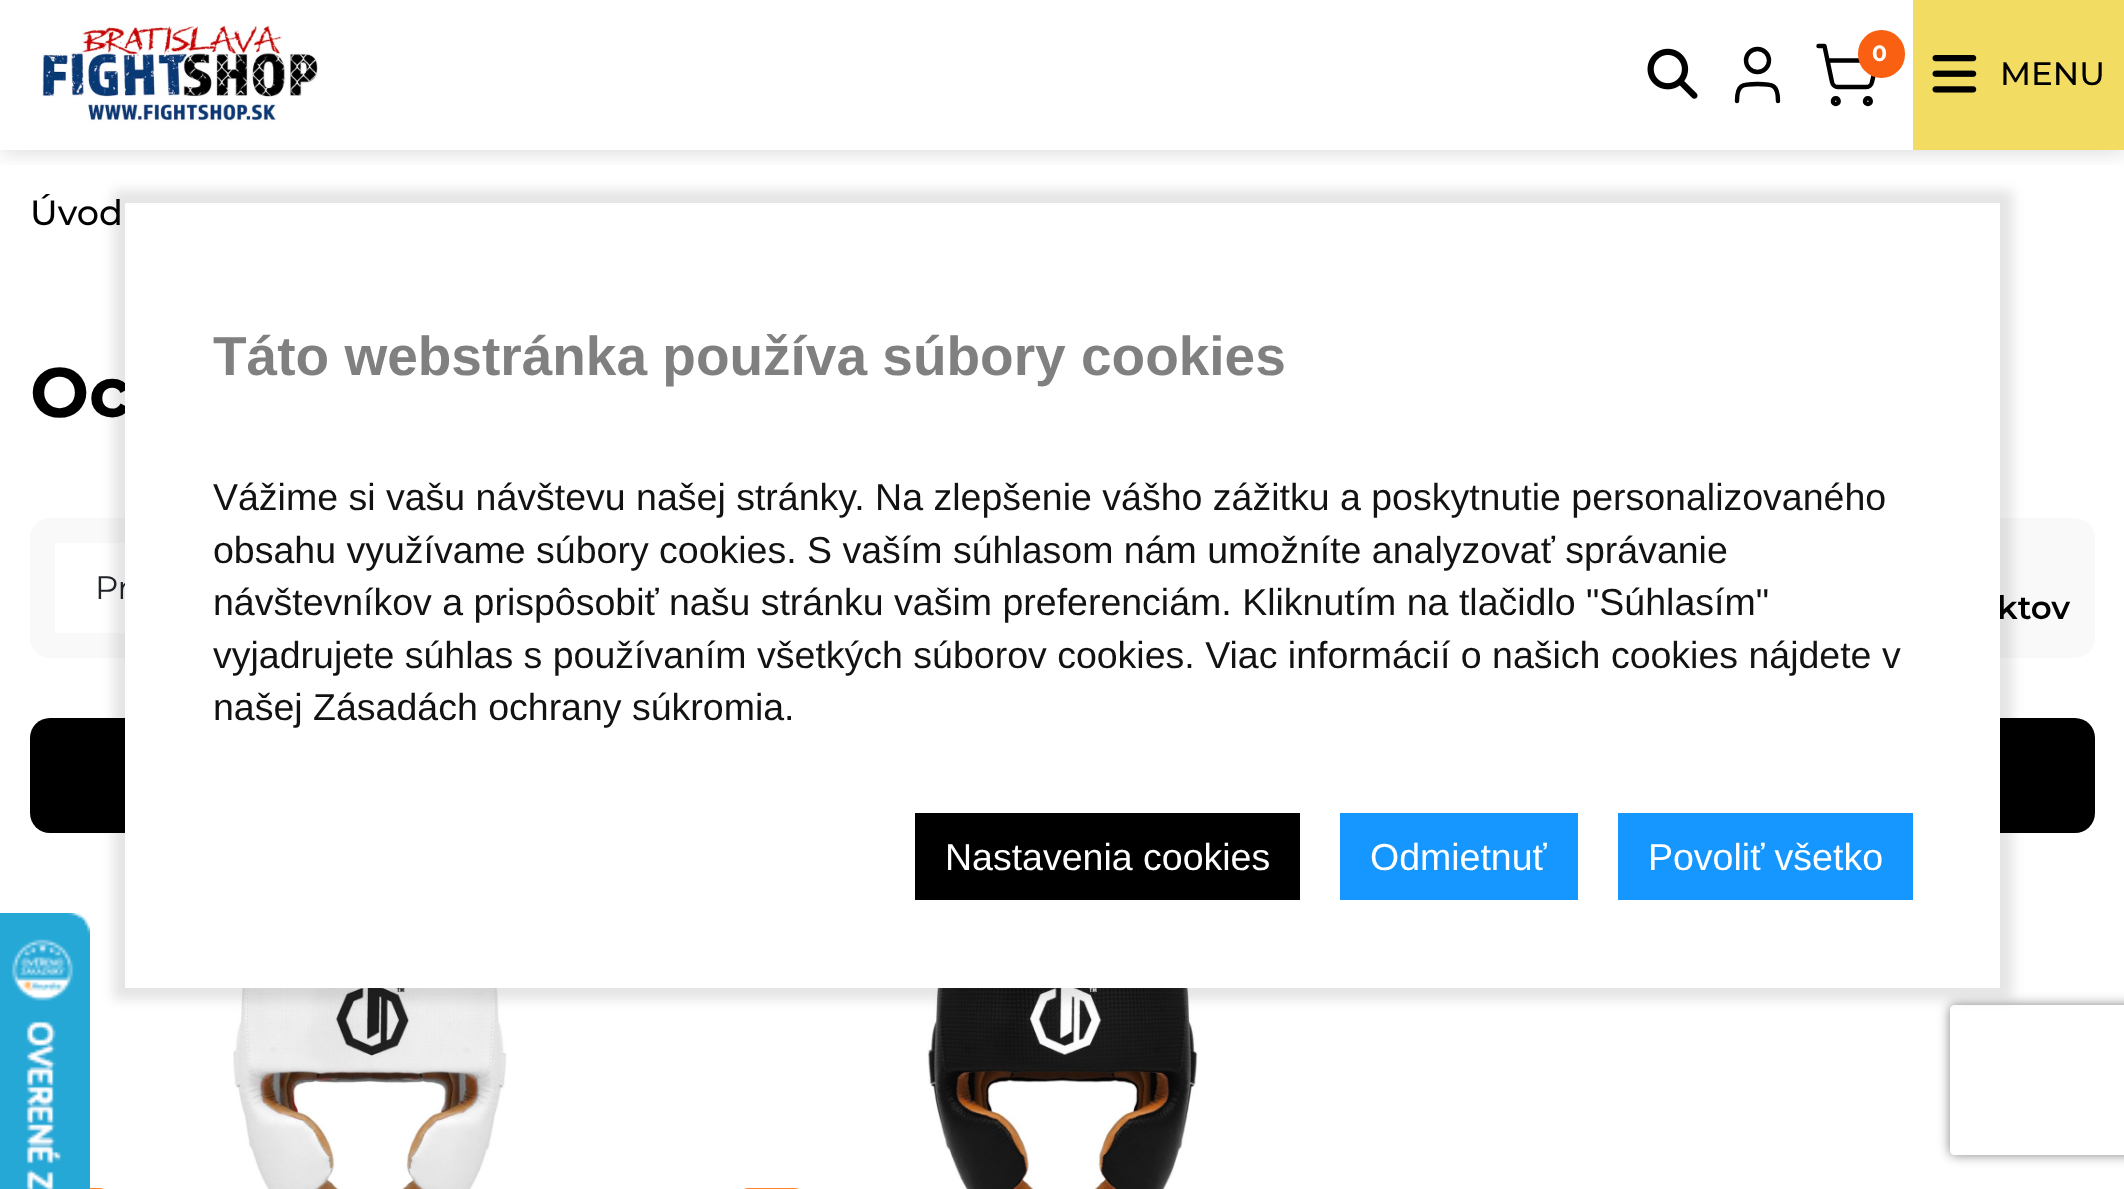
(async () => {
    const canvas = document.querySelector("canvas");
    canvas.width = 2124;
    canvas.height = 1189;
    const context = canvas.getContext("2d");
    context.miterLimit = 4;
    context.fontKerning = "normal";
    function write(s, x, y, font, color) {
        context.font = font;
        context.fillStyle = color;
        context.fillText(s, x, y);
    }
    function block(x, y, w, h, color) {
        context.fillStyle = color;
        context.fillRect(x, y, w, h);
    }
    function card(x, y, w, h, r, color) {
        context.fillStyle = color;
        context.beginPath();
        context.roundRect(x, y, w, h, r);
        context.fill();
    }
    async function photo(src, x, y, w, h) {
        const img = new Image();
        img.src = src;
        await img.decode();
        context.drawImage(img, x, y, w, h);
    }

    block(0, 0, 2124, 1189, "rgb(255, 255, 255)");
    context.save();
    context.beginPath();
    context.rect(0, 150, 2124, 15);
    context.clip();
    context.fillStyle = "rgba(0, 0, 0, 0.17)";
    context.filter = "blur(12.5px)";
    context.beginPath();
    context.rect(0, 0, 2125, 150);
    context.fill();
    context.filter = "none";
    context.restore();
    await photo("media/1.png", 42, 25, 276, 98);
    await photo("media/2.png", 1647, 48, 51, 51);
    context.beginPath();
    context.arc(1757.5, 60.5, 11.5, 0, Math.PI * 2);
    context.strokeStyle = "rgb(0, 0, 0)";
    context.lineWidth = 4.4;
    context.stroke();
    context.beginPath();
    context.moveTo(1778, 101);
    context.bezierCurveTo(1778, 84.5, 1773, 84, 1757.5, 84);
    context.bezierCurveTo(1742, 84, 1737, 84.5, 1737, 101);
    context.lineCap = "round";
    context.lineJoin = "round";
    context.stroke();
    context.beginPath();
    context.moveTo(1818.5, 46);
    context.lineTo(1824.5, 46);
    context.lineTo(1832, 82);
    context.bezierCurveTo(1832.5, 85, 1835, 87, 1838, 87);
    context.lineTo(1866.5, 87);
    context.bezierCurveTo(1869, 87, 1871.5, 85, 1872, 82);
    context.lineTo(1877, 60.5);
    context.lineTo(1827.5, 60.5);
    context.stroke();
    card(1858, 30, 47, 48, 23.5, "rgb(250, 96, 18)");
    write("0", 1872, 61, "bold 22px Montserrat", "rgb(255, 255, 255)");
    context.beginPath();
    context.arc(1835.8, 101.2, 2.9, 0, Math.PI * 2);
    context.stroke();
    context.beginPath();
    context.arc(1867.9, 101.2, 2.9, 0, Math.PI * 2);
    context.stroke();
    block(1913, 0, 211, 150, "rgb(242, 220, 97)");
    await photo("media/3.png", 1932, 55, 45, 38);
    write("MENU", 2000, 85, "500 32.5px Montserrat", "rgb(0, 0, 0)");
    write("Úvod", 30, 225, "500 35px Montserrat", "rgb(0, 0, 0)");
    write("Oc", 30, 417, "bold 70px Montserrat", "rgb(0, 0, 0)");
    card(30, 518, 2065, 140, 20, "rgb(249, 249, 249)");
    block(55, 543, 70, 90, "rgb(255, 255, 255)");
    write("Pr", 95, 599, "32.5px Montserrat", "rgb(33, 37, 41)");
    write("ktov", 1997, 619, "600 32.5px Montserrat", "rgb(0, 0, 0)");
    card(30, 718, 2065, 115, 20, "rgb(0, 0, 0)");
    await photo("media/4.png", 233, 988, 274, 201);
    card(43, 1188, 67, 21, 20, "rgb(255, 131, 41)");
    await photo("media/5.png", 927, 988, 271, 201);
    card(738, 1188, 67, 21, 20, "rgb(255, 131, 41)");
    context.fillStyle = "rgba(0, 0, 0, 0.1)";
    context.filter = "blur(6px)";
    context.beginPath();
    context.rect(113, 190, 1900, 810);
    context.fill();
    context.filter = "none";
    context.save();
    context.beginPath();
    context.moveTo(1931, 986);
    context.lineTo(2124, 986);
    context.lineTo(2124, 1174);
    context.lineTo(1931, 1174);
    context.closePath();
    context.moveTo(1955, 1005);
    context.lineTo(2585, 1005);
    context.bezierCurveTo(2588, 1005, 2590, 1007, 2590, 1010);
    context.lineTo(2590, 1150);
    context.bezierCurveTo(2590, 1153, 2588, 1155, 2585, 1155);
    context.lineTo(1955, 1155);
    context.bezierCurveTo(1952, 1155, 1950, 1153, 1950, 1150);
    context.lineTo(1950, 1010);
    context.bezierCurveTo(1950, 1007, 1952, 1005, 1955, 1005);
    context.closePath();
    context.clip("evenodd");
    context.fillStyle = "rgb(128, 128, 128)";
    context.filter = "blur(6px)";
    context.beginPath();
    context.roundRect(1950, 1005, 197, 150, 5);
    context.fill();
    context.filter = "none";
    context.restore();
    block(125, 203, 1875, 785, "rgb(255, 255, 255)");
    write("Táto webstránka používa súbory cookies", 213, 375, "bold 55px Liberation Sans", "rgb(128, 128, 128)");
    write("Vážime si vašu návštevu našej stránky. Na zlepšenie vášho zážitku a poskytnutie personalizovaného", 213, 510, "37.5px Liberation Sans", "rgb(18, 18, 18)");
    write("obsahu využívame súbory cookies. S vaším súhlasom nám umožníte analyzovať správanie", 213, 563, "37.5px Liberation Sans", "rgb(18, 18, 18)");
    write("návštevníkov a prispôsobiť našu stránku vašim preferenciám. Kliknutím na tlačidlo \"Súhlasím\"", 213, 615, "37.5px Liberation Sans", "rgb(18, 18, 18)");
    write("vyjadrujete súhlas s používaním všetkých súborov cookies. Viac informácií o našich cookies nájdete v", 213, 668, "37.5px Liberation Sans", "rgb(18, 18, 18)");
    write("našej Zásadách ochrany súkromia.", 213, 720, "37.5px Liberation Sans", "rgb(18, 18, 18)");
    block(915, 813, 385, 87, "rgb(0, 0, 0)");
    write("Nastavenia cookies", 945, 870, "37.5px Liberation Sans", "rgb(255, 255, 255)");
    block(1340, 813, 238, 87, "rgb(22, 150, 255)");
    write("Odmietnuť", 1370, 870, "37.5px Liberation Sans", "rgb(255, 255, 255)");
    block(1618, 813, 295, 87, "rgb(22, 150, 255)");
    write("Povoliť všetko", 1648, 870, "37.5px Liberation Sans", "rgb(255, 255, 255)");
    await photo("media/6.png", 0, 913, 90, 276);
})();
